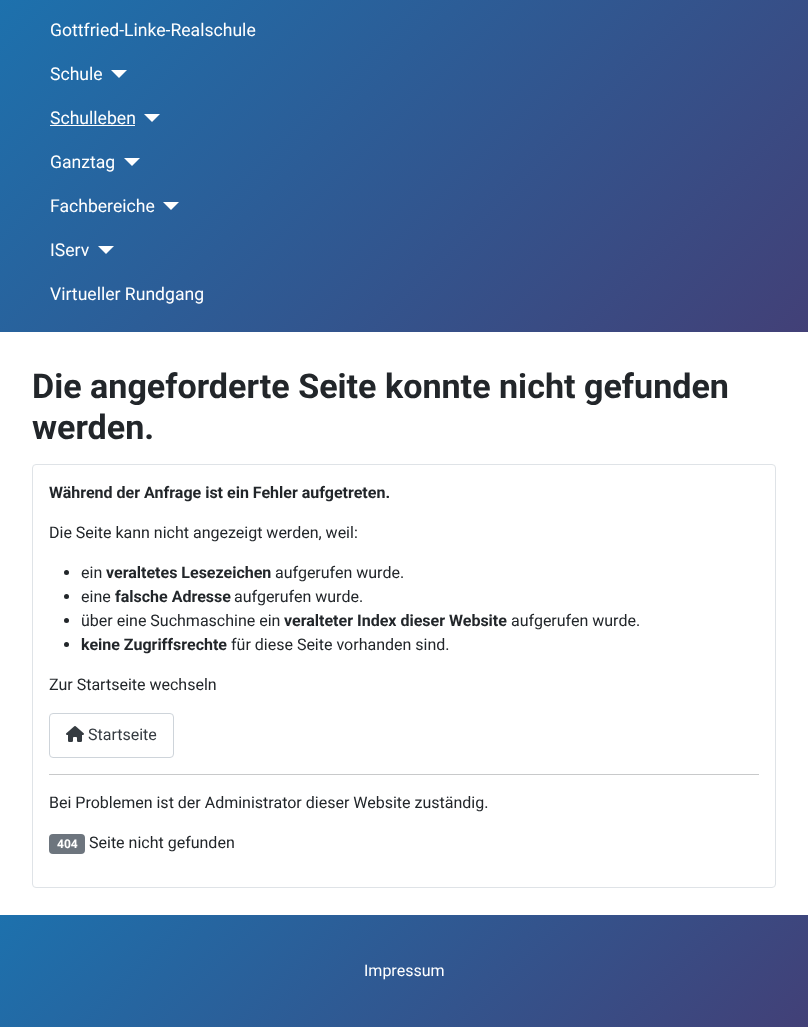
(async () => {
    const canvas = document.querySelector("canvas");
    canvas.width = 808;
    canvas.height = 1027;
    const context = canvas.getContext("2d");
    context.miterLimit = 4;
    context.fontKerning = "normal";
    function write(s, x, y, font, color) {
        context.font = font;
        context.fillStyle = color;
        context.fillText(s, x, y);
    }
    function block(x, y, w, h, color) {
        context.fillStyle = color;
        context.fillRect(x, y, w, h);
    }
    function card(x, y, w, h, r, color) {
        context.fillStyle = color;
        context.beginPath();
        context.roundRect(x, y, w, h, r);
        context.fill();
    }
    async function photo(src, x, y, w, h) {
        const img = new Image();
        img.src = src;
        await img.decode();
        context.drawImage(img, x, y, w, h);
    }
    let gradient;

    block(0, 0, 808, 1027, "rgb(255, 255, 255)");
    gradient = context.createLinearGradient(119, -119, 689, 451);
    gradient.addColorStop(0, "rgb(29, 113, 173)");
    gradient.addColorStop(1, "rgb(66, 64, 119)");
    context.fillStyle = gradient;
    context.fillRect(0, 0, 808, 332);
    write("Gottfried-Linke-Realschule", 50, 36, "17.6px Roboto", "rgb(255, 255, 255)");
    write("Schule", 50, 80, "17.6px Roboto", "rgb(255, 255, 255)");
    context.beginPath();
    context.moveTo(111, 70);
    context.lineTo(127, 70);
    context.lineTo(119, 78);
    context.closePath();
    context.fill();
    write("Schulleben", 50, 124, "17.6px Roboto", "rgb(255, 255, 255)");
    block(50, 125, 85, 1, "rgb(255, 255, 255)");
    context.beginPath();
    context.moveTo(144, 114);
    context.lineTo(160, 114);
    context.lineTo(152, 122);
    context.closePath();
    context.fill();
    write("Ganztag", 50, 168, "17.6px Roboto", "rgb(255, 255, 255)");
    context.beginPath();
    context.moveTo(124, 158);
    context.lineTo(140, 158);
    context.lineTo(132, 166);
    context.closePath();
    context.fill();
    write("Fachbereiche", 50, 212, "17.6px Roboto", "rgb(255, 255, 255)");
    context.beginPath();
    context.moveTo(163, 202);
    context.lineTo(179, 202);
    context.lineTo(171, 210);
    context.closePath();
    context.fill();
    write("IServ", 50, 256, "17.6px Roboto", "rgb(255, 255, 255)");
    context.beginPath();
    context.moveTo(98, 246);
    context.lineTo(114, 246);
    context.lineTo(106, 254);
    context.closePath();
    context.fill();
    write("Virtueller Rundgang", 50, 300, "17.6px Roboto", "rgb(255, 255, 255)");
    write("Die angeforderte Seite konnte nicht gefunden", 32, 398, "bold 34.1px Roboto", "rgb(34, 38, 42)");
    write("werden.", 32, 439, "bold 34.1px Roboto", "rgb(34, 38, 42)");
    context.beginPath();
    context.roundRect(32.5, 464.5, 743, 423, 3.5);
    context.strokeStyle = "rgb(223, 227, 231)";
    context.stroke();
    write("Während der Anfrage ist ein Fehler aufgetreten.", 49, 498, "bold 16px Roboto", "rgb(34, 38, 42)");
    write("Die Seite kann nicht angezeigt werden, weil:", 49, 538, "16px Roboto", "rgb(34, 38, 42)");
    context.beginPath();
    context.arc(66.5, 572.5, 2.5, 0, Math.PI * 2);
    context.fill();
    write("ein", 81, 578, "16px Roboto", "rgb(34, 38, 42)");
    write("veraltetes Lesezeichen", 106, 578, "bold 16px Roboto", "rgb(34, 38, 42)");
    write("aufgerufen wurde.", 275, 578, "16px Roboto", "rgb(34, 38, 42)");
    context.beginPath();
    context.arc(66.5, 596.5, 2.5, 0, Math.PI * 2);
    context.fill();
    write("eine", 81, 602, "16px Roboto", "rgb(34, 38, 42)");
    write("falsche Adresse", 115, 602, "bold 16px Roboto", "rgb(34, 38, 42)");
    write("aufgerufen wurde.", 234, 602, "16px Roboto", "rgb(34, 38, 42)");
    context.beginPath();
    context.arc(66.5, 620.5, 2.5, 0, Math.PI * 2);
    context.fill();
    write("über eine Suchmaschine ein", 81, 626, "16px Roboto", "rgb(34, 38, 42)");
    write("veralteter Index dieser Website", 284, 626, "bold 16px Roboto", "rgb(34, 38, 42)");
    write("aufgerufen wurde.", 511, 626, "16px Roboto", "rgb(34, 38, 42)");
    context.beginPath();
    context.arc(66.5, 644.5, 2.5, 0, Math.PI * 2);
    context.fill();
    write("keine Zugriffsrechte", 81, 650, "bold 16px Roboto", "rgb(34, 38, 42)");
    write("für diese Seite vorhanden sind.", 231, 650, "16px Roboto", "rgb(34, 38, 42)");
    write("Zur Startseite wechseln", 49, 690, "16px Roboto", "rgb(34, 38, 42)");
    context.beginPath();
    context.roundRect(49.5, 713.5, 124, 44, 3.5);
    context.strokeStyle = "rgb(206, 212, 218)";
    context.stroke();
    await photo("media/1.png", 66, 726, 18, 16);
    write("Startseite", 88, 740, "16px Roboto", "rgb(53, 59, 65)");
    block(49, 774, 710, 1, "rgb(200, 201, 202)");
    write("Bei Problemen ist der Administrator dieser Website zuständig.", 49, 808, "16px Roboto", "rgb(34, 38, 42)");
    card(49, 834, 36, 20, 4, "rgb(109, 117, 126)");
    write("404", 57, 848, "bold 12px Roboto", "rgb(255, 255, 255)");
    write("Seite nicht gefunden", 89, 848, "16px Roboto", "rgb(34, 38, 42)");
    gradient = context.createLinearGradient(174, 741, 634, 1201);
    gradient.addColorStop(0, "rgb(29, 113, 173)");
    gradient.addColorStop(1, "rgb(66, 64, 119)");
    context.fillStyle = gradient;
    context.fillRect(0, 915, 808, 112);
    write("Impressum", 364, 976, "16px Roboto", "rgb(255, 255, 255)");
})();
